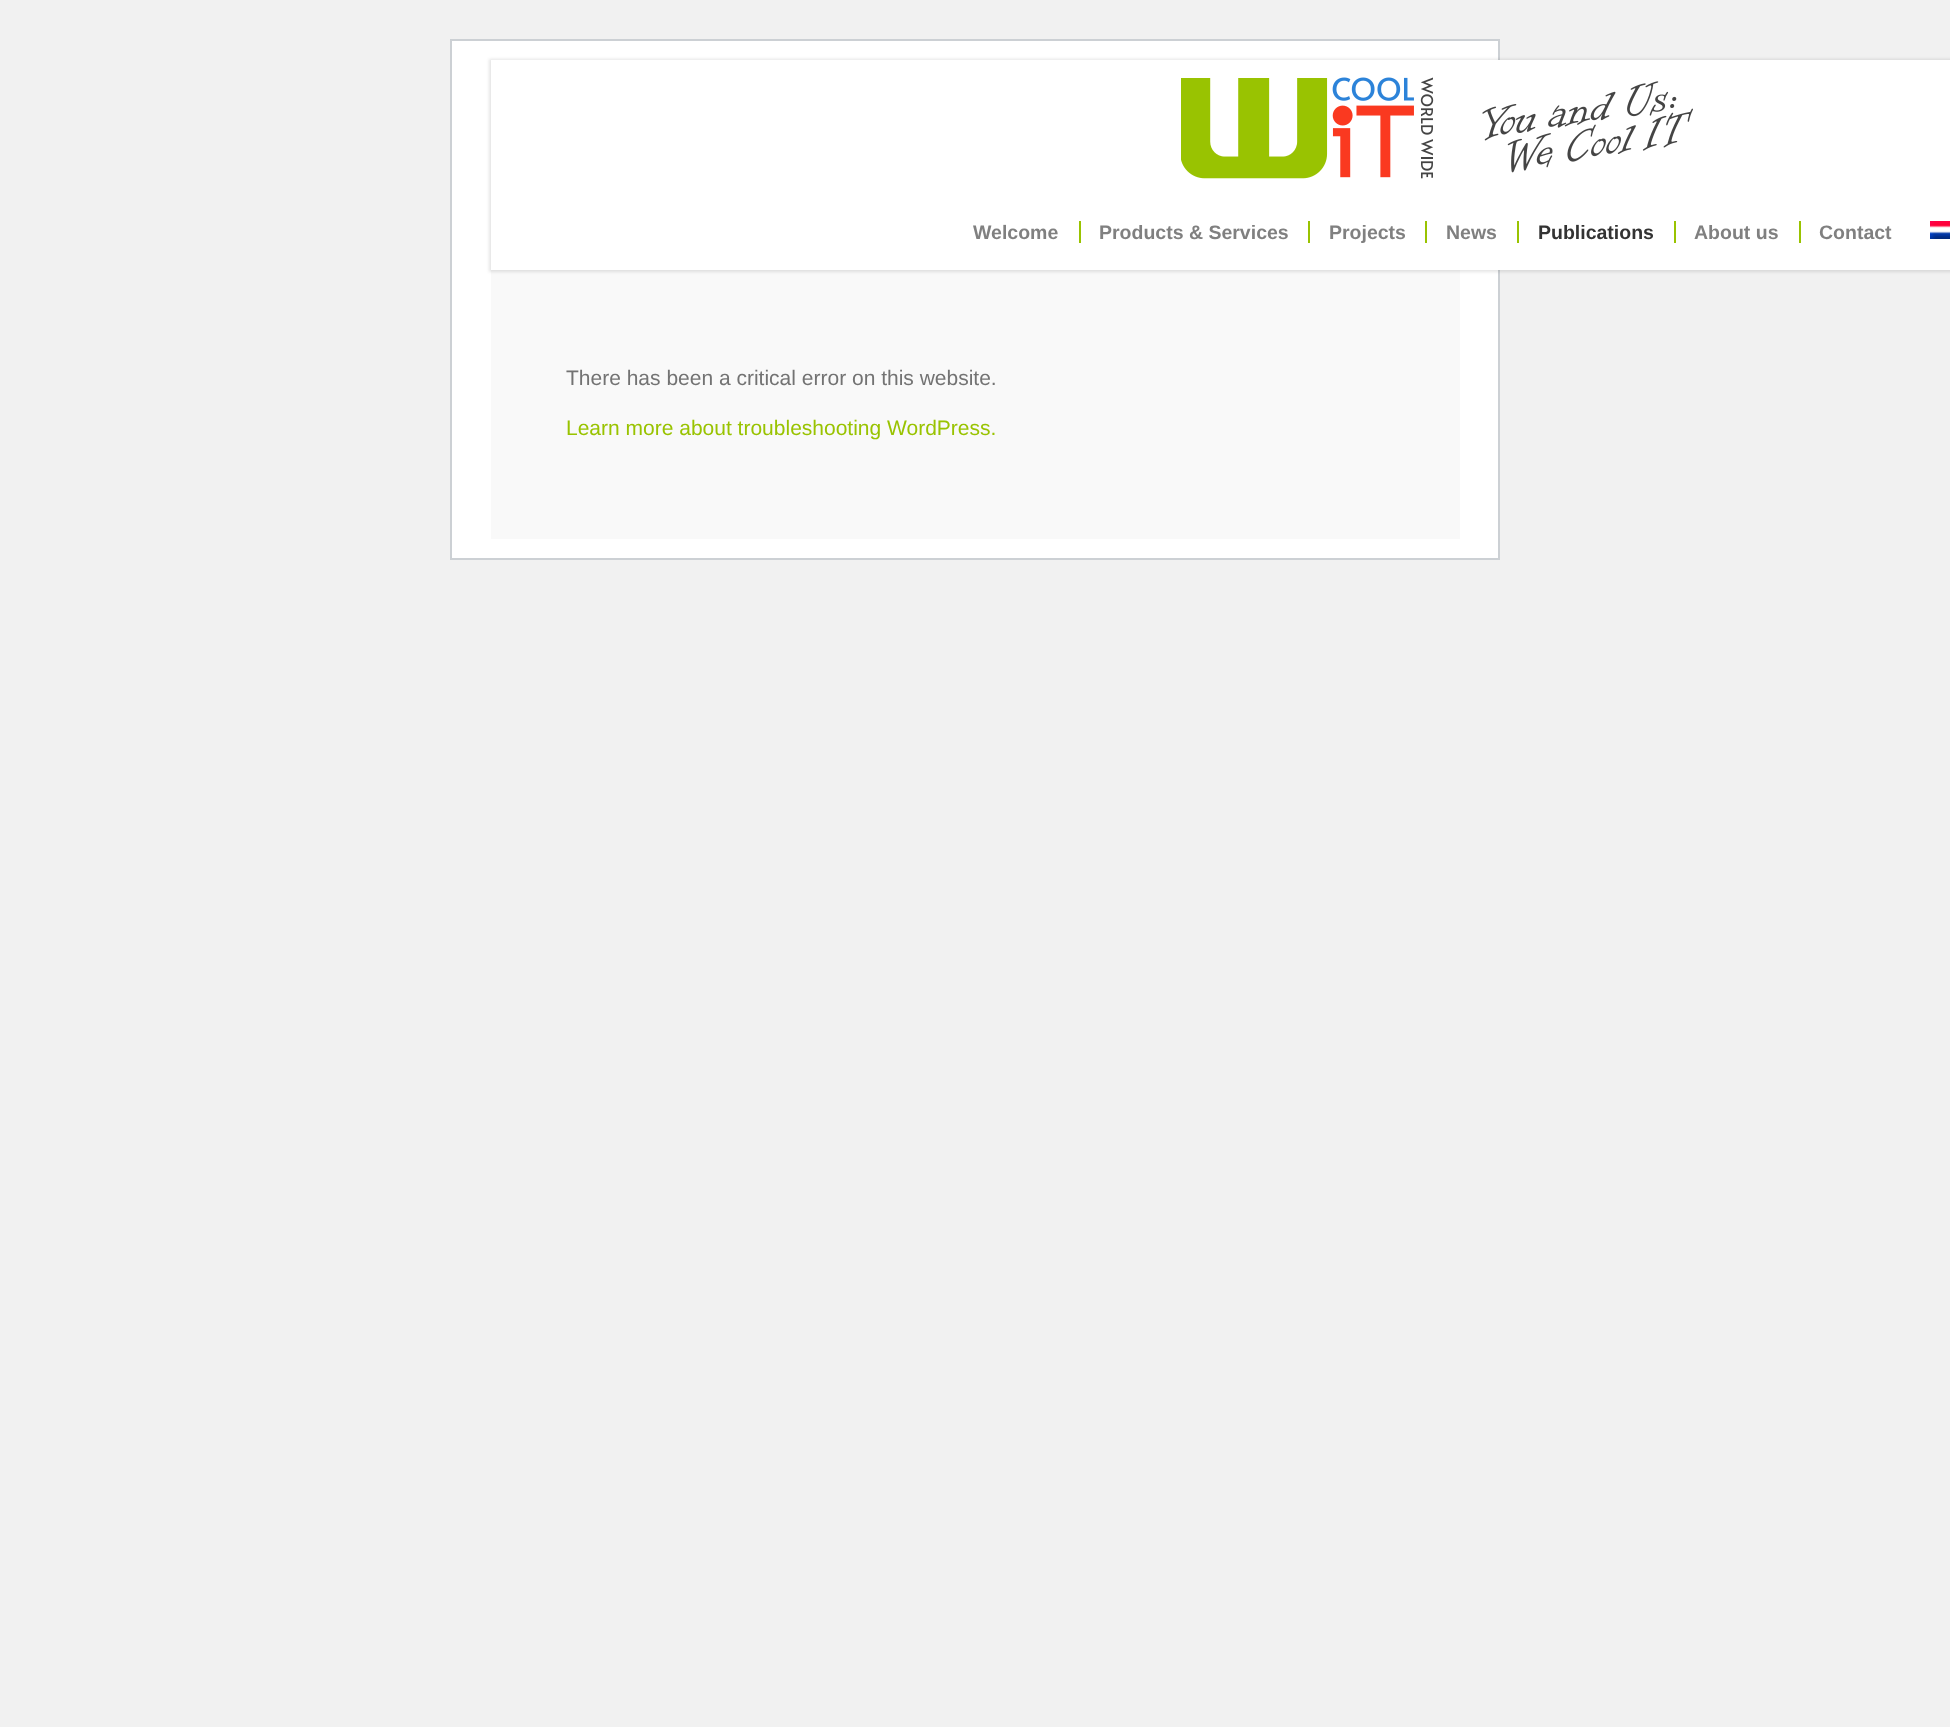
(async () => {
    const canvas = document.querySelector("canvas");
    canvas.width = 1950;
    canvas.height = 1727;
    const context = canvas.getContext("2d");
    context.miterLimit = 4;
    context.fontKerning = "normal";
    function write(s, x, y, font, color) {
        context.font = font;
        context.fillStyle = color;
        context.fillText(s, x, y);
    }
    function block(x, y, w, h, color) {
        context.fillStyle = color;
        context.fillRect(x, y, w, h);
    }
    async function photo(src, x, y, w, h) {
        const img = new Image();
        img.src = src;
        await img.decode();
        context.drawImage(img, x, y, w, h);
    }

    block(0, 0, 1950, 1727, "rgb(241, 241, 241)");
    context.fillStyle = "rgb(255, 255, 255)";
    context.beginPath();
    context.rect(451, 40, 1048, 519);
    context.fill();
    context.strokeStyle = "rgb(204, 208, 212)";
    context.lineWidth = 2;
    context.stroke();
    block(491, 270, 969, 269, "rgb(249, 249, 249)");
    context.fillStyle = "rgba(0, 0, 0, 0.1)";
    context.filter = "blur(1.5px)";
    context.beginPath();
    context.rect(489, 59, 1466, 213);
    context.fill();
    context.filter = "none";
    block(491, 60, 1459, 210, "rgb(255, 255, 255)");
    await photo("media/1.png", 1181, 77, 512, 102);
    write("Welcome", 973, 239, "bold 19.5px Liberation Sans", "rgb(128, 128, 128)");
    write("Products & Services", 1099, 239, "bold 19.5px Liberation Sans", "rgb(128, 128, 128)");
    block(1079, 221, 2, 22, "rgb(153, 195, 1)");
    write("Projects", 1329, 239, "bold 19.5px Liberation Sans", "rgb(128, 128, 128)");
    block(1308, 221, 2, 22, "rgb(153, 195, 1)");
    write("News", 1446, 239, "bold 19.5px Liberation Sans", "rgb(128, 128, 128)");
    block(1425, 221, 2, 22, "rgb(153, 195, 1)");
    write("Publications", 1538, 239, "bold 19.5px Liberation Sans", "rgb(51, 51, 51)");
    block(1517, 221, 2, 22, "rgb(153, 195, 1)");
    write("About us", 1694, 239, "bold 19.5px Liberation Sans", "rgb(128, 128, 128)");
    block(1674, 221, 2, 22, "rgb(153, 195, 1)");
    write("Contact", 1819, 239, "bold 19.5px Liberation Sans", "rgb(128, 128, 128)");
    block(1799, 221, 2, 22, "rgb(153, 195, 1)");
    await photo("media/2.png", 1930, 221, 20, 18);
    write("There has been a critical error on this website.", 566, 385, "21px Liberation Sans", "rgb(115, 115, 115)");
    write("Learn more about troubleshooting WordPress.", 566, 435, "21px Liberation Sans", "rgb(153, 195, 1)");
})();
